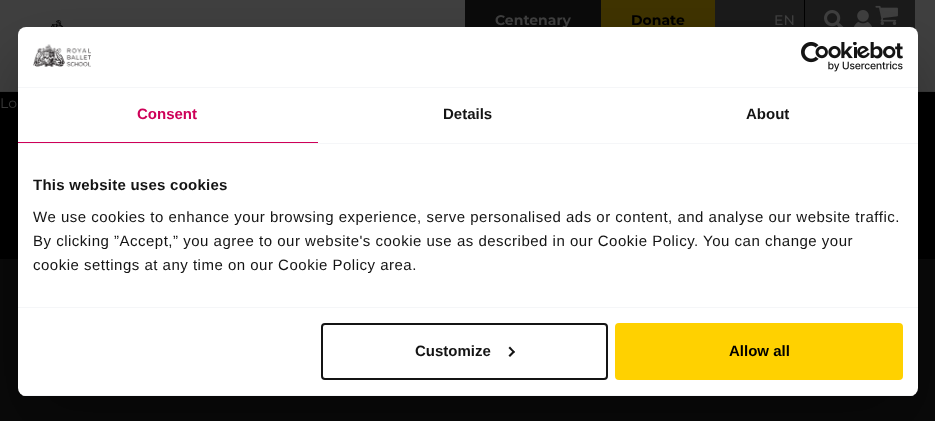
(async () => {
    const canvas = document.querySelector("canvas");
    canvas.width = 935;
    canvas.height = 421;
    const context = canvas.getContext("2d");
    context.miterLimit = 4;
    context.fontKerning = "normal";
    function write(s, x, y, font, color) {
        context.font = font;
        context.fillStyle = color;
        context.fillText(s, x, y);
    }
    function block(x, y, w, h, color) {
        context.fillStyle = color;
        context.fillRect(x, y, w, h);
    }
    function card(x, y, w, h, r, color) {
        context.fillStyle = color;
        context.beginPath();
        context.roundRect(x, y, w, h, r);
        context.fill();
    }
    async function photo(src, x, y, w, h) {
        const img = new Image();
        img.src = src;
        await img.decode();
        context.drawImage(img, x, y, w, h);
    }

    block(0, 0, 935, 421, "rgb(10, 10, 10)");
    block(0, 0, 935, 91, "rgb(64, 64, 64)");
    block(0, 91, 935, 1, "rgb(59, 59, 59)");
    await photo("media/1.png", 51, 20, 13, 7);
    block(715, 0, 200, 29, "rgb(27, 27, 27)");
    block(465, 0, 136, 27, "rgb(11, 11, 11)");
    write("Centenary", 495, 25, "bold 14px Montserrat", "rgb(64, 64, 64)");
    block(601, 0, 114, 27, "rgb(64, 52, 0)");
    write("Donate", 631, 25, "bold 14px Montserrat", "rgb(0, 0, 0)");
    write("EN", 774, 25, "500 14px Montserrat", "rgb(64, 64, 64)");
    block(804, 0, 1, 27, "rgb(0, 0, 0)");
    await photo("media/2.png", 824, 10, 20, 17);
    await photo("media/3.png", 854, 10, 18, 17);
    await photo("media/4.png", 875, 5, 23, 20);
    block(0, 92, 935, 167, "rgb(0, 0, 0)");
    write("Lo", 0, 108, "14px Montserrat", "rgb(64, 64, 64)");
    context.fillStyle = "rgba(0, 0, 0, 0.3)";
    context.filter = "blur(34px)";
    context.beginPath();
    context.roundRect(18, 59, 900, 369, 8);
    context.fill();
    context.filter = "none";
    card(18, 27, 900, 369, 8, "rgb(255, 255, 255)");
    block(18, 87, 900, 1, "rgb(245, 246, 248)");
    await photo("media/5.png", 33, 44, 58, 23);
    await photo("media/6.png", 801, 42, 102, 30);
    block(18, 143, 900, 1, "rgb(245, 246, 248)");
    block(18, 142, 300, 1, "rgb(206, 0, 88)");
    write("Consent", 137, 119, "bold 15px Liberation Sans", "rgb(206, 0, 88)");
    write("Details", 443, 119, "bold 15px Liberation Sans", "rgb(20, 20, 20)");
    write("About", 746, 119, "bold 15px Liberation Sans", "rgb(20, 20, 20)");
    block(18, 307, 900, 1, "rgb(245, 246, 248)");
    context.letterSpacing = "0.25px";
    write("This website uses cookies", 33, 190, "bold 15px Liberation Sans", "rgb(20, 20, 20)");
    context.letterSpacing = "0.5px";
    write("We use cookies to enhance your browsing experience, serve personalised ads or content, and analyse our website traffic.", 33, 222, "15px Liberation Sans", "rgb(20, 20, 20)");
    write("By clicking ”Accept,” you agree to our website's cookie use as described in our Cookie Policy. You can change your", 33, 246, "15px Liberation Sans", "rgb(20, 20, 20)");
    write("cookie settings at any time on our Cookie Policy area.", 33, 270, "15px Liberation Sans", "rgb(20, 20, 20)");
    context.save();
    context.beginPath();
    context.roundRect(18, 27, 900, 369, 8);
    context.clip();
    block(18, 395, 900, 1, "rgb(245, 246, 248)");
    context.restore();
    context.beginPath();
    context.roundRect(322, 324, 285, 55, 3);
    context.strokeStyle = "rgb(20, 20, 20)";
    context.lineWidth = 2;
    context.stroke();
    context.letterSpacing = "0px";
    write("Customize", 415, 356, "bold 15px Liberation Sans", "rgb(20, 20, 20)");
    context.beginPath();
    context.moveTo(510, 346.5);
    context.lineTo(515, 352);
    context.lineTo(513.5, 353);
    context.lineTo(508.5, 348);
    context.closePath();
    context.fill();
    context.beginPath();
    context.moveTo(513.5, 350.5);
    context.lineTo(515, 352);
    context.lineTo(510, 357);
    context.lineTo(508.5, 355.5);
    context.closePath();
    context.fill();
    context.fillStyle = "rgb(255, 209, 0)";
    context.beginPath();
    context.roundRect(616, 324, 286, 55, 3);
    context.fill();
    context.strokeStyle = "rgb(255, 209, 0)";
    context.stroke();
    write("Allow all", 729, 356, "bold 15px Liberation Sans", "rgb(0, 0, 0)");
})();
